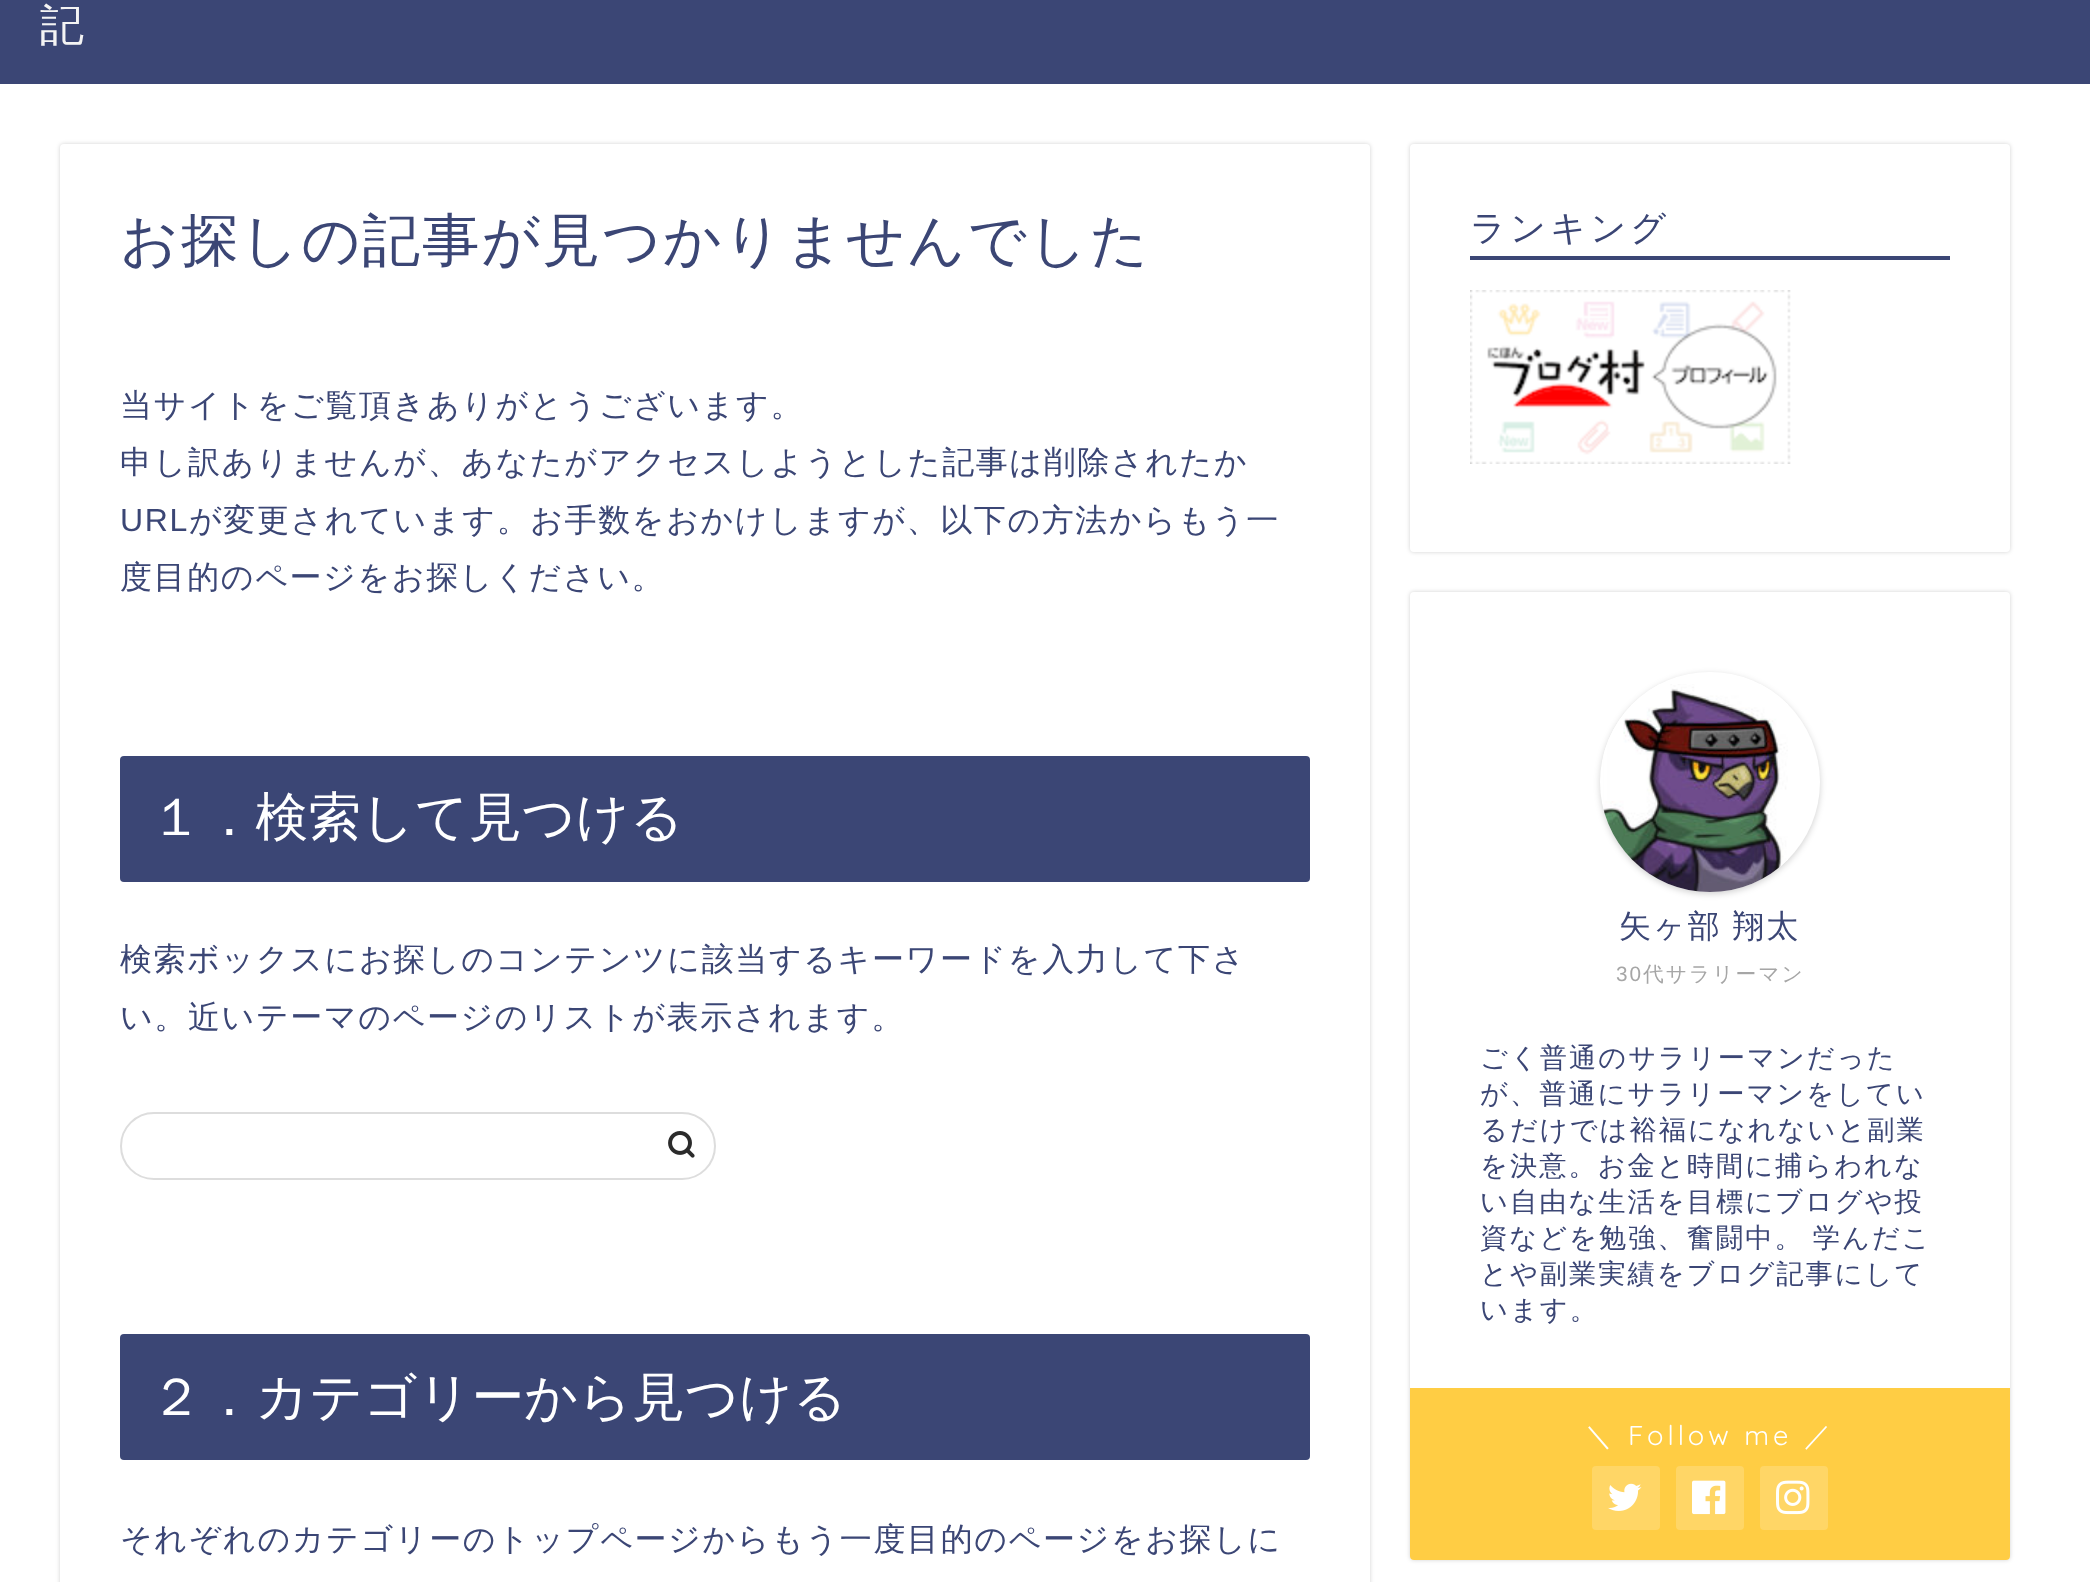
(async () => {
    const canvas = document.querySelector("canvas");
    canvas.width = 2090;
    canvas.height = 1582;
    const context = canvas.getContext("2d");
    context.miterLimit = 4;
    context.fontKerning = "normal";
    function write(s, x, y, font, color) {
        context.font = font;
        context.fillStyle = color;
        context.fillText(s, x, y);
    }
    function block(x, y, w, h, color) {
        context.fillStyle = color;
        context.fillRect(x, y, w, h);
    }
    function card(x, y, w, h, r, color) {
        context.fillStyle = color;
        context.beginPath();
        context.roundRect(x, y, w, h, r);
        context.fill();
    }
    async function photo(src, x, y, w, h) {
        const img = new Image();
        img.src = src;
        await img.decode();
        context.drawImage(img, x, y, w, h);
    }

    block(0, 0, 2090, 1582, "rgb(255, 255, 255)");
    block(0, 0, 2090, 84, "rgb(59, 70, 117)");
    context.letterSpacing = "6px";
    write("記", 40, 40, "500 44px WenQuanYi Zen Hei", "rgb(244, 244, 244)");
    context.fillStyle = "rgba(0, 0, 0, 0.18)";
    context.filter = "blur(2px)";
    context.beginPath();
    context.roundRect(60, 144, 1310, 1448, 4);
    context.fill();
    context.filter = "none";
    card(60, 144, 1310, 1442, 4, "rgb(255, 255, 255)");
    context.letterSpacing = "2px";
    write("お探しの記事が見つかりませんでした", 120, 260, "500 57.6px WenQuanYi Zen Hei", "rgb(59, 70, 117)");
    context.letterSpacing = "1.6px";
    write("当サイトをご覧頂きありがとうございます。", 120, 416, "500 32px WenQuanYi Zen Hei", "rgb(59, 70, 117)");
    write("申し訳ありませんが、あなたがアクセスしようとした記事は削除されたか", 120, 473, "500 32px WenQuanYi Zen Hei", "rgb(59, 70, 117)");
    write("URL", 120, 531, "32px Liberation Sans", "rgb(59, 70, 117)");
    write("が変更されています。お手数をおかけしますが、以下の方法からもう一", 189, 531, "500 32px WenQuanYi Zen Hei", "rgb(59, 70, 117)");
    write("度目的のページをお探しください。", 120, 588, "500 32px WenQuanYi Zen Hei", "rgb(59, 70, 117)");
    card(120, 756, 1190, 126, 4, "rgb(59, 70, 117)");
    context.letterSpacing = "0px";
    write("１．検索して見つける", 150, 835, "500 52.75px WenQuanYi Zen Hei", "rgb(255, 255, 255)");
    context.letterSpacing = "1.6px";
    write("検索ボックスにお探しのコンテンツに該当するキーワードを入力して下さ", 120, 970, "500 32px WenQuanYi Zen Hei", "rgb(59, 70, 117)");
    write("い。近いテーマのページのリストが表示されます。", 120, 1028, "500 32px WenQuanYi Zen Hei", "rgb(59, 70, 117)");
    context.beginPath();
    context.roundRect(121, 1113, 594, 66, 33);
    context.strokeStyle = "rgb(221, 221, 221)";
    context.lineWidth = 2;
    context.stroke();
    await photo("media/1.png", 668, 1131, 27, 27);
    card(120, 1334, 1190, 126, 4, "rgb(59, 70, 117)");
    context.letterSpacing = "0px";
    write("２．カテゴリーから見つける", 150, 1415, "500 52.75px WenQuanYi Zen Hei", "rgb(255, 255, 255)");
    context.letterSpacing = "1.6px";
    write("それぞれのカテゴリーのトップページからもう一度目的のページをお探しに", 120, 1550, "500 32px WenQuanYi Zen Hei", "rgb(59, 70, 117)");
    context.fillStyle = "rgba(0, 0, 0, 0.18)";
    context.filter = "blur(2px)";
    context.beginPath();
    context.roundRect(1410, 144, 600, 408, 4);
    context.fill();
    context.filter = "none";
    card(1410, 144, 600, 408, 4, "rgb(255, 255, 255)");
    block(1470, 256, 480, 4, "rgb(59, 70, 117)");
    context.letterSpacing = "4px";
    write("ランキング", 1470, 240, "500 35.25px WenQuanYi Zen Hei", "rgb(59, 70, 117)");
    await photo("media/2.png", 1470, 290, 321, 174);
    context.fillStyle = "rgba(0, 0, 0, 0.18)";
    context.filter = "blur(2px)";
    context.beginPath();
    context.roundRect(1410, 592, 600, 968, 4);
    context.fill();
    context.filter = "none";
    card(1410, 592, 600, 968, 4, "rgb(255, 255, 255)");
    context.fillStyle = "rgba(0, 0, 0, 0.18)";
    context.filter = "blur(3px)";
    context.beginPath();
    context.roundRect(1600, 674, 220, 220, 110);
    context.fill();
    context.filter = "none";
    context.fillStyle = "rgb(255, 255, 255)";
    context.beginPath();
    context.arc(1710, 782, 110, 0, Math.PI * 2);
    context.fill();
    await photo("media/3.png", 1603, 684, 185, 208);
    context.letterSpacing = "2px";
    context.wordSpacing = "-1px";
    write("矢ヶ部 翔太", 1619, 937, "500 32px WenQuanYi Zen Hei", "rgb(59, 70, 117)");
    context.wordSpacing = "0px";
    write("30", 1616, 981, "20.75px Liberation Sans", "rgb(166, 166, 166)");
    write("代サラリーマン", 1643, 981, "500 20.75px WenQuanYi Zen Hei", "rgb(166, 166, 166)");
    write("ごく普通のサラリーマンだった", 1480, 1067, "500 27.25px WenQuanYi Zen Hei", "rgb(59, 70, 117)");
    write("が、普通にサラリーマンをしてい", 1480, 1103, "500 27.25px WenQuanYi Zen Hei", "rgb(59, 70, 117)");
    write("るだけでは裕福になれないと副業", 1480, 1139, "500 27.25px WenQuanYi Zen Hei", "rgb(59, 70, 117)");
    write("を決意。お金と時間に捕らわれな", 1480, 1175, "500 27.25px WenQuanYi Zen Hei", "rgb(59, 70, 117)");
    write("い自由な生活を目標にブログや投", 1480, 1211, "500 27.25px WenQuanYi Zen Hei", "rgb(59, 70, 117)");
    context.wordSpacing = "-1px";
    write("資などを勉強、奮闘中。 学んだこ", 1480, 1247, "500 27.25px WenQuanYi Zen Hei", "rgb(59, 70, 117)");
    context.wordSpacing = "0px";
    write("とや副業実績をブログ記事にして", 1480, 1283, "500 27.25px WenQuanYi Zen Hei", "rgb(59, 70, 117)");
    write("います。", 1480, 1319, "500 27.25px WenQuanYi Zen Hei", "rgb(59, 70, 117)");
    context.fillStyle = "rgb(255, 205, 68)";
    context.beginPath();
    context.roundRect(1410, 1388, 600, 172, [0, 0, 4, 4]);
    context.fill();
    context.letterSpacing = "4px";
    write("＼", 1585, 1445, "500 27.25px WenQuanYi Zen Hei", "rgb(255, 255, 255)");
    write("Follow me", 1628, 1445, "300 27.25px Quicksand", "rgb(255, 255, 255)");
    write("／", 1804, 1445, "500 27.25px WenQuanYi Zen Hei", "rgb(255, 255, 255)");
    card(1592, 1466, 68, 64, 4, "rgb(255, 214, 102)");
    await photo("media/4.png", 1608, 1483, 34, 28);
    card(1676, 1466, 68, 64, 4, "rgb(255, 214, 102)");
    await photo("media/5.png", 1692, 1480, 34, 35);
    card(1760, 1466, 68, 64, 4, "rgb(255, 214, 102)");
    await photo("media/6.png", 1776, 1480, 34, 35);
})();
